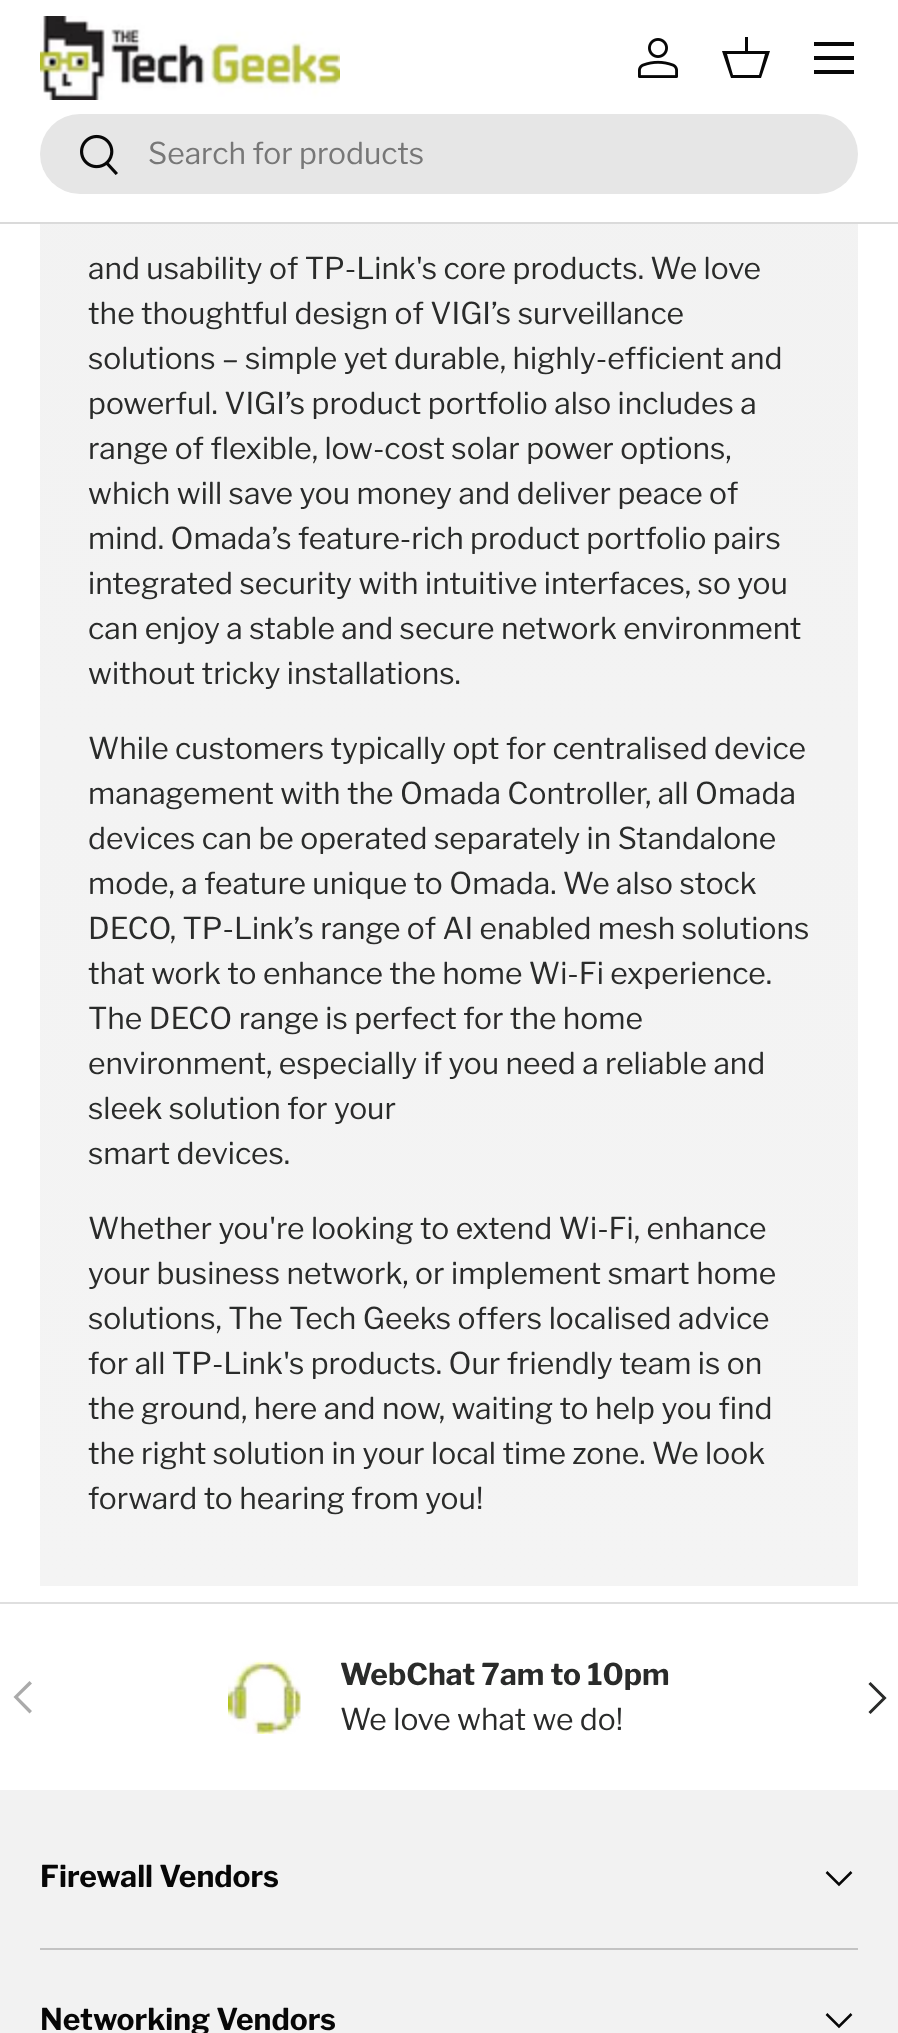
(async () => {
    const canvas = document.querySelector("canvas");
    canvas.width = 898;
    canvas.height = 2033;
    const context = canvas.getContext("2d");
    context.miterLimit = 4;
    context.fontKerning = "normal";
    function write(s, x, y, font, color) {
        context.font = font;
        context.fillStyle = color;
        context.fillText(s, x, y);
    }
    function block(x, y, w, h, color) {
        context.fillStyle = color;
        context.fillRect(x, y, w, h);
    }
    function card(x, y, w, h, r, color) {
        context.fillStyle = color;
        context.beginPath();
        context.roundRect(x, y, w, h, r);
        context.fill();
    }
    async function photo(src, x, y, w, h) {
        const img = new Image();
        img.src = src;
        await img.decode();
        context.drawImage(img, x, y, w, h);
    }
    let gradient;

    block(0, 0, 898, 2033, "rgb(255, 255, 255)");
    block(0, 222, 898, 2, "rgb(218, 218, 218)");
    await photo("media/1.png", 40, 16, 300, 84);
    await photo("media/2.png", 638, 38, 40, 40);
    context.fillStyle = "rgb(7, 7, 7)";
    context.beginPath();
    context.moveTo(745, 51);
    context.lineTo(745, 37);
    context.lineTo(748, 37);
    context.lineTo(748, 51);
    context.lineTo(770, 51);
    context.lineTo(761, 78);
    context.lineTo(731, 78);
    context.lineTo(722, 51);
    context.closePath();
    context.moveTo(727, 54);
    context.lineTo(733, 75);
    context.lineTo(759, 75);
    context.lineTo(765, 54);
    context.closePath();
    context.fill();
    block(814, 42, 40, 4, "rgb(7, 7, 7)");
    block(814, 70, 40, 4, "rgb(7, 7, 7)");
    block(814, 56, 40, 4, "rgb(7, 7, 7)");
    card(40, 114, 818, 80, 40, "rgb(230, 230, 230)");
    await photo("media/3.png", 80, 134, 38, 41);
    write("Search for products", 148, 164, "100 30px Libre Franklin", "rgb(119, 119, 119)");
    gradient = context.createLinearGradient(449, -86, 449, 1586);
    gradient.addColorStop(0, "rgb(242, 242, 242)");
    gradient.addColorStop(1, "rgb(244, 244, 244)");
    context.fillStyle = gradient;
    context.fillRect(40, 224, 818, 1362);
    write("and usability of TP-Link's core products. We love", 88, 279, "100 30px Libre Franklin", "rgb(42, 43, 42)");
    write("the thoughtful design of VIGI’s surveillance", 88, 324, "100 30px Libre Franklin", "rgb(42, 43, 42)");
    write("solutions – simple yet durable, highly-efficient and", 88, 369, "100 30px Libre Franklin", "rgb(42, 43, 42)");
    write("powerful. VIGI’s product portfolio also includes a", 88, 414, "100 30px Libre Franklin", "rgb(42, 43, 42)");
    write("range of flexible, low-cost solar power options,", 88, 459, "100 30px Libre Franklin", "rgb(42, 43, 42)");
    write("which will save you money and deliver peace of", 88, 504, "100 30px Libre Franklin", "rgb(42, 43, 42)");
    write("mind. Omada’s feature-rich product portfolio pairs", 88, 549, "100 30px Libre Franklin", "rgb(42, 43, 42)");
    write("integrated security with intuitive interfaces, so you", 88, 594, "100 30px Libre Franklin", "rgb(42, 43, 42)");
    write("can enjoy a stable and secure network environment", 88, 639, "100 30px Libre Franklin", "rgb(42, 43, 42)");
    write("without tricky installations.", 88, 684, "100 30px Libre Franklin", "rgb(42, 43, 42)");
    write("While customers typically opt for centralised device", 88, 759, "100 30px Libre Franklin", "rgb(42, 43, 42)");
    write("management with the Omada Controller, all Omada", 88, 804, "100 30px Libre Franklin", "rgb(42, 43, 42)");
    write("devices can be operated separately in Standalone", 88, 849, "100 30px Libre Franklin", "rgb(42, 43, 42)");
    write("mode, a feature unique to Omada. We also stock", 88, 894, "100 30px Libre Franklin", "rgb(42, 43, 42)");
    write("DECO, TP-Link’s range of AI enabled mesh solutions", 88, 939, "100 30px Libre Franklin", "rgb(42, 43, 42)");
    write("that work to enhance the home Wi-Fi experience.", 88, 984, "100 30px Libre Franklin", "rgb(42, 43, 42)");
    write("The DECO range is perfect for the home", 88, 1029, "100 30px Libre Franklin", "rgb(42, 43, 42)");
    write("environment, especially if you need a reliable and", 88, 1074, "100 30px Libre Franklin", "rgb(42, 43, 42)");
    write("sleek solution for your", 88, 1119, "100 30px Libre Franklin", "rgb(42, 43, 42)");
    write("smart devices.", 88, 1164, "100 30px Libre Franklin", "rgb(42, 43, 42)");
    write("Whether you're looking to extend Wi-Fi, enhance", 88, 1239, "100 30px Libre Franklin", "rgb(42, 43, 42)");
    write("your business network, or implement smart home", 88, 1284, "100 30px Libre Franklin", "rgb(42, 43, 42)");
    write("solutions, The Tech Geeks offers localised advice", 88, 1329, "100 30px Libre Franklin", "rgb(42, 43, 42)");
    write("for all TP-Link's products. Our friendly team is on", 88, 1374, "100 30px Libre Franklin", "rgb(42, 43, 42)");
    write("the ground, here and now, waiting to help you find", 88, 1419, "100 30px Libre Franklin", "rgb(42, 43, 42)");
    write("the right solution in your local time zone. We look", 88, 1464, "100 30px Libre Franklin", "rgb(42, 43, 42)");
    write("forward to hearing from you!", 88, 1509, "100 30px Libre Franklin", "rgb(42, 43, 42)");
    block(0, 1602, 898, 2, "rgb(223, 223, 223)");
    await photo("media/4.png", 228, 1660, 73, 74);
    write("WebChat 7am to 10pm", 340, 1685, "bold 30px Libre Franklin", "rgb(42, 43, 42)");
    write("We love what we do!", 340, 1730, "100 30px Libre Franklin", "rgb(42, 43, 42)");
    context.fillStyle = "rgb(170, 170, 170)";
    context.beginPath();
    context.moveTo(13.5, 1697);
    context.lineTo(29.5, 1681);
    context.lineTo(32, 1683.5);
    context.lineTo(18, 1697);
    context.lineTo(32, 1711);
    context.lineTo(29.5, 1713.5);
    context.closePath();
    context.fill();
    context.beginPath();
    context.moveTo(869.5, 1683);
    context.lineTo(884.5, 1698);
    context.lineTo(869.5, 1713);
    context.strokeStyle = "rgb(42, 43, 42)";
    context.lineWidth = 3;
    context.stroke();
    block(0, 1790, 898, 243, "rgb(242, 242, 242)");
    block(40, 1948, 818, 2, "rgb(195, 195, 195)");
    write("Firewall Vendors", 40, 1887, "bold 30px Libre Franklin", "rgb(7, 7, 7)");
    context.beginPath();
    context.moveTo(851.5, 1872);
    context.lineTo(839, 1884.5);
    context.lineTo(826.5, 1872);
    context.strokeStyle = "rgb(7, 7, 7)";
    context.lineWidth = 2.5;
    context.stroke();
    write("Networking Vendors", 40, 2030, "bold 30px Libre Franklin", "rgb(7, 7, 7)");
    context.beginPath();
    context.moveTo(851.5, 2014);
    context.lineTo(839, 2026.5);
    context.lineTo(826.5, 2014);
    context.stroke();
})();
